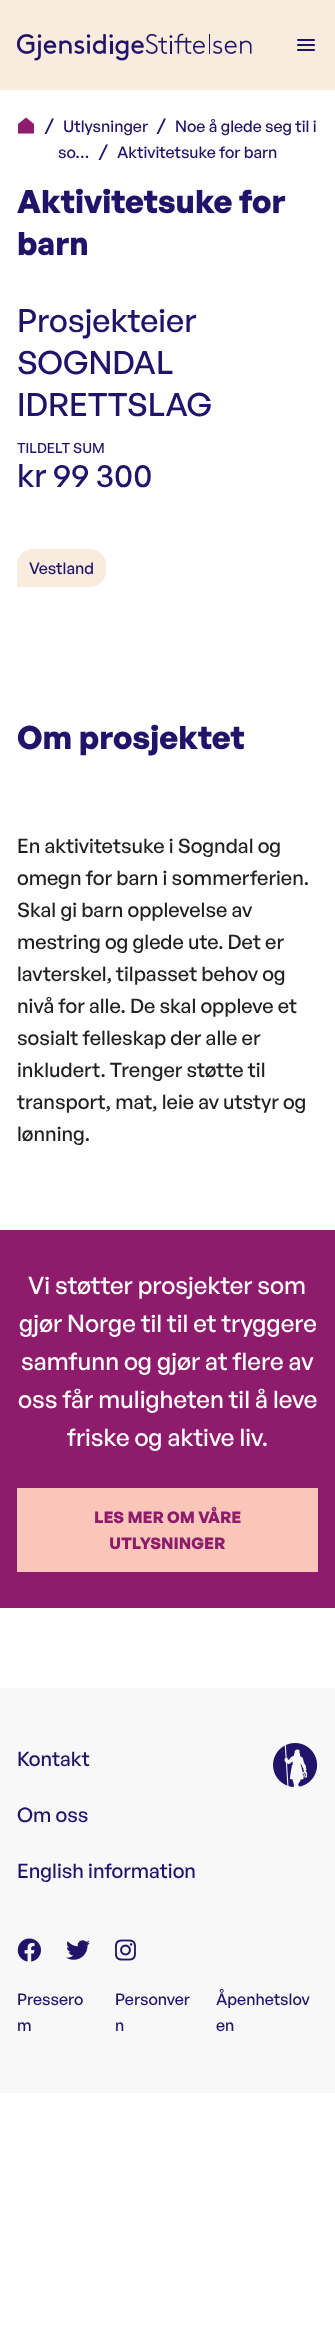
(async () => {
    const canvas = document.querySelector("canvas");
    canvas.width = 335;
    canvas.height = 2328;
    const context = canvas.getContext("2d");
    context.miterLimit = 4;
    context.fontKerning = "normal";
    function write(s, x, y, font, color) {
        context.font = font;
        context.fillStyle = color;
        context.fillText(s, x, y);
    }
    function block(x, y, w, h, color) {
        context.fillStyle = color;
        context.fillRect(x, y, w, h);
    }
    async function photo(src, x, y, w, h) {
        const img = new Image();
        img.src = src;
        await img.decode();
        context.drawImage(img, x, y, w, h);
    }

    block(0, 0, 335, 2328, "rgb(255, 255, 255)");
    block(0, 0, 335, 90, "rgb(250, 235, 223)");
    await photo("media/1.png", 17, 33, 235, 28);
    await photo("media/2.png", 297, 39, 18, 12);
    context.fillStyle = "rgb(143, 27, 108)";
    context.beginPath();
    context.moveTo(18, 124);
    context.lineTo(26, 117.5);
    context.lineTo(34, 124);
    context.lineTo(34, 133.5);
    context.lineTo(18, 133.5);
    context.closePath();
    context.fill();
    context.fillStyle = "rgb(32, 19, 105)";
    context.beginPath();
    context.moveTo(46.5, 134);
    context.lineTo(54, 118.5);
    context.lineTo(52, 118.5);
    context.lineTo(44.5, 134);
    context.closePath();
    context.fill();
    write("Utlysninger", 63, 132, "500 16px General Sans", "rgb(32, 19, 105)");
    context.beginPath();
    context.moveTo(158.5, 134);
    context.lineTo(166, 118.5);
    context.lineTo(164, 118.5);
    context.lineTo(156.5, 134);
    context.closePath();
    context.fill();
    write("Noe å glede seg til i", 175, 132, "500 16px General Sans", "rgb(32, 19, 105)");
    write("so…", 58, 158, "500 16px General Sans", "rgb(32, 19, 105)");
    context.beginPath();
    context.moveTo(100.5, 160);
    context.lineTo(108, 144.5);
    context.lineTo(106, 144.5);
    context.lineTo(98.5, 160);
    context.closePath();
    context.fill();
    write("Aktivitetsuke for barn", 117, 158, "500 16px General Sans", "rgb(32, 19, 105)");
    write("Aktivitetsuke for", 17, 213, "bold 32px General Sans", "rgb(32, 19, 105)");
    write("barn", 17, 255, "bold 32px General Sans", "rgb(32, 19, 105)");
    write("Prosjekteier", 17, 332, "500 32px General Sans", "rgb(32, 19, 105)");
    write("SOGNDAL", 17, 374, "500 32px General Sans", "rgb(32, 19, 105)");
    write("IDRETTSLAG", 17, 416, "500 32px General Sans", "rgb(32, 19, 105)");
    write("TILDELT SUM", 17, 453, "500 14px General Sans", "rgb(32, 19, 105)");
    write("kr 99 300", 17, 487, "500 32px General Sans", "rgb(32, 19, 105)");
    context.fillStyle = "rgb(250, 235, 223)";
    context.beginPath();
    context.roundRect(17, 549, 89, 38, [16, 16, 16, 0]);
    context.fill();
    write("Vestland", 29, 574, "500 16px General Sans", "rgb(32, 19, 105)");
    write("Om prosjektet", 17, 749, "bold 32px General Sans", "rgb(32, 19, 105)");
    write("En aktivitetsuke i Sogndal og", 17, 853, "500 20px General Sans", "rgb(31, 31, 31)");
    write("omegn for barn i sommerferien.", 17, 885, "500 20px General Sans", "rgb(31, 31, 31)");
    write("Skal gi barn opplevelse av", 17, 917, "500 20px General Sans", "rgb(31, 31, 31)");
    write("mestring og glede ute. Det er", 17, 949, "500 20px General Sans", "rgb(31, 31, 31)");
    write("lavterskel, tilpasset behov og", 17, 981, "500 20px General Sans", "rgb(31, 31, 31)");
    write("nivå for alle. De skal oppleve et", 17, 1013, "500 20px General Sans", "rgb(31, 31, 31)");
    write("sosialt felleskap der alle er", 17, 1045, "500 20px General Sans", "rgb(31, 31, 31)");
    write("inkludert. Trenger støtte til", 17, 1077, "500 20px General Sans", "rgb(31, 31, 31)");
    write("transport, mat, leie av utstyr og", 17, 1109, "500 20px General Sans", "rgb(31, 31, 31)");
    write("lønning.", 17, 1141, "500 20px General Sans", "rgb(31, 31, 31)");
    block(0, 1230, 335, 378, "rgb(143, 27, 108)");
    write("Vi støtter prosjekter som", 28, 1294, "500 24px General Sans", "rgb(255, 255, 255)");
    write("gjør Norge til til et tryggere", 19, 1332, "500 24px General Sans", "rgb(255, 255, 255)");
    write("samfunn og gjør at flere av", 21, 1370, "500 24px General Sans", "rgb(255, 255, 255)");
    write("oss får muligheten til å leve", 18, 1408, "500 24px General Sans", "rgb(255, 255, 255)");
    write("friske og aktive liv.", 67, 1446, "500 24px General Sans", "rgb(255, 255, 255)");
    block(17, 1488, 301, 84, "rgb(250, 198, 185)");
    write("LES MER OM VÅRE", 94, 1523, "bold 16px General Sans", "rgb(143, 27, 108)");
    write("UTLYSNINGER", 109, 1549, "bold 16px General Sans", "rgb(143, 27, 108)");
    block(0, 1688, 335, 405, "rgb(248, 248, 248)");
    write("Kontakt", 17, 1766, "500 20px General Sans", "rgb(32, 19, 105)");
    write("Om oss", 17, 1822, "500 20px General Sans", "rgb(32, 19, 105)");
    write("English information", 17, 1878, "500 20px General Sans", "rgb(32, 19, 105)");
    await photo("media/3.png", 273, 1743, 45, 44);
    await photo("media/4.png", 17, 1938, 24, 24);
    await photo("media/5.png", 66, 1940, 24, 20);
    await photo("media/6.png", 115, 1939, 21, 22);
    write("Pressero", 17, 2005, "500 16px General Sans", "rgb(32, 19, 105)");
    write("m", 17, 2031, "500 16px General Sans", "rgb(32, 19, 105)");
    write("Personver", 115, 2005, "500 16px General Sans", "rgb(32, 19, 105)");
    write("n", 115, 2031, "500 16px General Sans", "rgb(32, 19, 105)");
    write("Åpenhetslov", 216, 2005, "500 16px General Sans", "rgb(32, 19, 105)");
    write("en", 216, 2031, "500 16px General Sans", "rgb(32, 19, 105)");
})();
